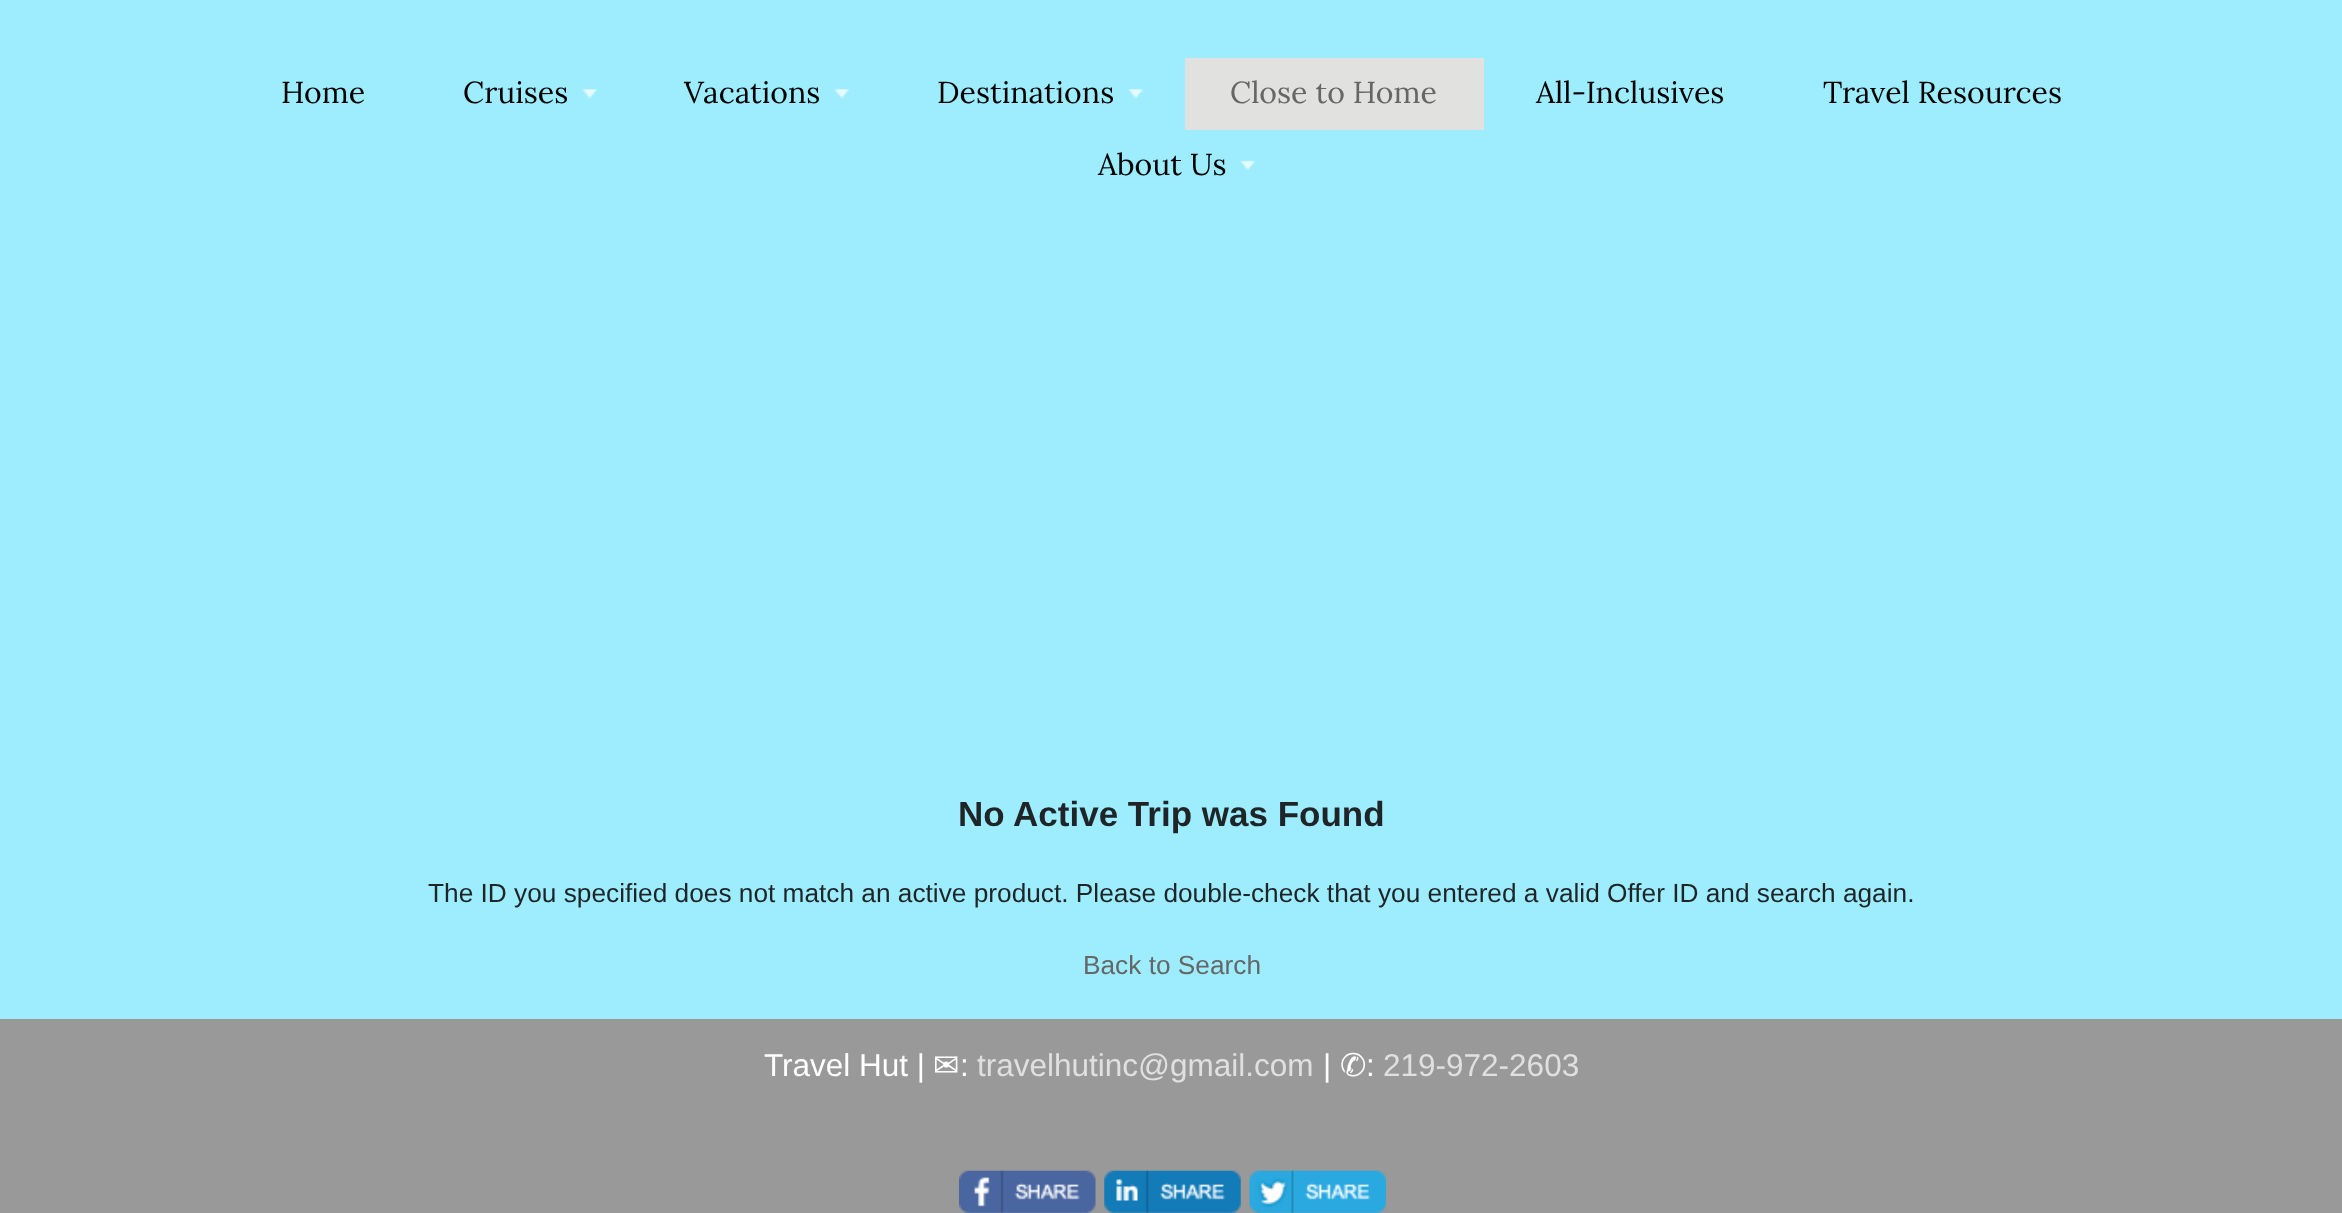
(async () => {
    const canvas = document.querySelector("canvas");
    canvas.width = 2342;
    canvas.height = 1213;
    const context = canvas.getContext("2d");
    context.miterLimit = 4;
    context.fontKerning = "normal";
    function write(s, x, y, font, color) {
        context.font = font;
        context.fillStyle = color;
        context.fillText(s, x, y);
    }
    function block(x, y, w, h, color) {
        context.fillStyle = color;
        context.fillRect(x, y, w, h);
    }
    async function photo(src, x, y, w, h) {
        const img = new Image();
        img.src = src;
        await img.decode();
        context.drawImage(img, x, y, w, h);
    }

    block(0, 0, 2342, 1213, "rgb(157, 237, 255)");
    write("Home", 281, 103, "30.25px Lora", "rgb(0, 0, 0)");
    await photo("media/1.png", 582, 88, 16, 11);
    write("Cruises", 463, 103, "30.25px Lora", "rgb(0, 0, 0)");
    await photo("media/1.png", 834, 88, 16, 11);
    write("Vacations", 684, 103, "30.25px Lora", "rgb(0, 0, 0)");
    await photo("media/1.png", 1128, 88, 16, 11);
    write("Destinations", 937, 103, "30.25px Lora", "rgb(0, 0, 0)");
    block(1185, 58, 299, 72, "rgb(225, 225, 224)");
    write("Close to Home", 1230, 103, "30.25px Lora", "rgb(102, 102, 102)");
    write("All-Inclusives", 1536, 103, "30.25px Lora", "rgb(0, 0, 0)");
    write("Travel Resources", 1823, 103, "30.25px Lora", "rgb(0, 0, 0)");
    await photo("media/2.png", 1240, 160, 16, 10);
    write("About Us", 1098, 175, "30.25px Lora", "rgb(0, 0, 0)");
    write("No Active Trip was Found", 958, 826, "bold 35px Liberation Sans", "rgb(31, 36, 38)");
    write("The ID you specified does not match an active product. Please double-check that you entered a valid Offer ID and search again.", 428, 902, "26.25px Liberation Sans", "rgb(31, 36, 38)");
    write("Back to Search", 1083, 974, "26.25px Liberation Sans", "rgb(102, 102, 102)");
    block(0, 1019, 2342, 194, "rgb(153, 153, 153)");
    write("Travel Hut |", 764, 1076, "31.5px Liberation Sans", "rgb(255, 255, 255)");
    write("✉", 933, 1076, "31.5px DejaVu Sans", "rgb(255, 255, 255)");
    write(":", 960, 1076, "31.5px Liberation Sans", "rgb(255, 255, 255)");
    write("travelhutinc@gmail.com", 977, 1076, "31.5px Liberation Sans", "rgb(224, 224, 224)");
    write("|", 1323, 1076, "31.5px Liberation Sans", "rgb(255, 255, 255)");
    write("✆", 1340, 1076, "31.5px DejaVu Sans", "rgb(255, 255, 255)");
    write(":", 1366, 1076, "31.5px Liberation Sans", "rgb(255, 255, 255)");
    write("219-972-2603", 1383, 1076, "31.5px Liberation Sans", "rgb(224, 224, 224)");
    await photo("media/3.png", 959, 1170, 137, 43);
    await photo("media/4.png", 1104, 1170, 137, 43);
    await photo("media/5.png", 1249, 1170, 137, 43);
})();
